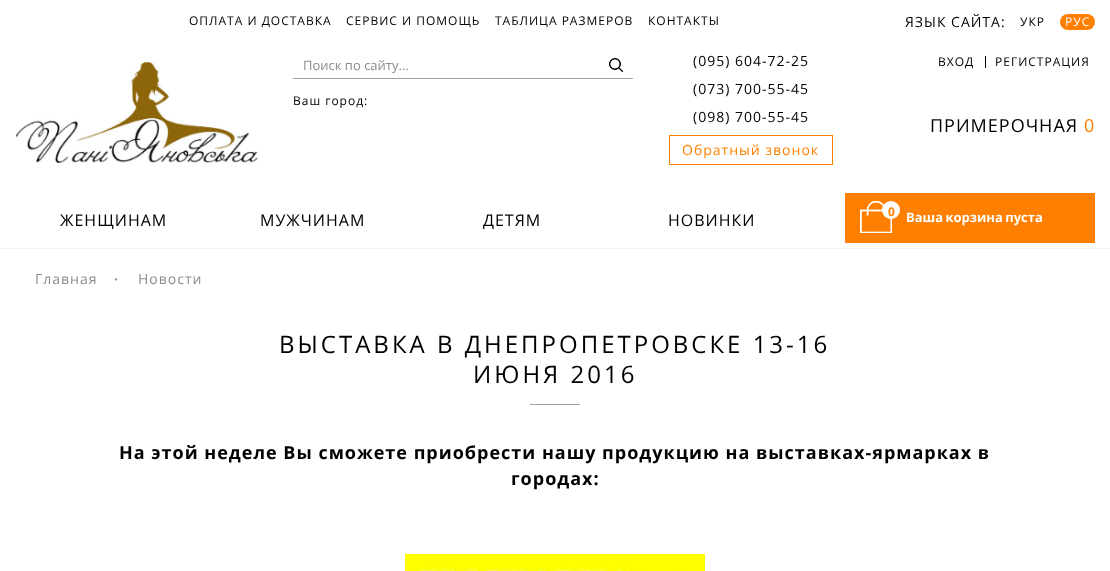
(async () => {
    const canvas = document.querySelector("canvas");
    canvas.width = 1110;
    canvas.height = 571;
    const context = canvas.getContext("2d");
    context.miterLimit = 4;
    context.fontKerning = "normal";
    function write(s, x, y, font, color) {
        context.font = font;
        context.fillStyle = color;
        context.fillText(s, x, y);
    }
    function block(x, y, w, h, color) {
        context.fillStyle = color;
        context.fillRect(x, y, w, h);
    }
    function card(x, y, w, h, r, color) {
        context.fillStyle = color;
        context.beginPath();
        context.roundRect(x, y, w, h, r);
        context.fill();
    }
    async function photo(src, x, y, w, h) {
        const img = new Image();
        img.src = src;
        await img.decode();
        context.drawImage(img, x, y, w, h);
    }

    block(0, 0, 1110, 571, "rgb(255, 255, 255)");
    context.letterSpacing = "1px";
    write("ОПЛАТА И ДОСТАВКА", 189, 25, "12px Open Sans", "rgb(0, 0, 0)");
    write("СЕРВИС И ПОМОЩЬ", 346, 25, "12px Open Sans", "rgb(0, 0, 0)");
    write("ТАБЛИЦА РАЗМЕРОВ", 495, 25, "12px Open Sans", "rgb(0, 0, 0)");
    write("КОНТАКТЫ", 648, 25, "12px Open Sans", "rgb(0, 0, 0)");
    write("ЯЗЫК САЙТА:", 905, 27, "14px Open Sans", "rgb(0, 0, 0)");
    write("УКР", 1020, 26, "12px Open Sans", "rgb(0, 0, 0)");
    card(1060, 14, 35, 16, 8, "rgb(255, 128, 0)");
    write("РУС", 1065, 26, "12px Open Sans", "rgb(255, 255, 255)");
    await photo("media/1.png", 16, 62, 242, 101);
    await photo("media/2.png", 609, 58, 14, 14);
    block(293, 78, 340, 1, "rgb(162, 162, 162)");
    context.letterSpacing = "0px";
    write("Поиск по сайту...", 303, 70, "13px Open Sans", "rgb(140, 140, 140)");
    context.letterSpacing = "1px";
    write("Ваш город:", 293, 105, "12px Open Sans", "rgb(0, 0, 0)");
    write("(095) 604-72-25", 693, 66, "14px Open Sans", "rgb(0, 0, 0)");
    write("(073) 700-55-45", 693, 94, "14px Open Sans", "rgb(0, 0, 0)");
    write("(098) 700-55-45", 693, 122, "14px Open Sans", "rgb(0, 0, 0)");
    context.strokeStyle = "rgb(255, 128, 0)";
    context.strokeRect(669.5, 135.5, 163, 29);
    write("Обратный звонок", 682, 155, "14px Open Sans", "rgb(255, 128, 0)");
    block(985, 56, 1, 12, "rgb(0, 0, 0)");
    write("ВХОД", 938, 66, "12px Open Sans", "rgb(0, 0, 0)");
    write("РЕГИСТРАЦИЯ", 995, 66, "12px Open Sans", "rgb(0, 0, 0)");
    write("ПРИМЕРОЧНАЯ", 930, 132, "18px Open Sans", "rgb(0, 0, 0)");
    write("0", 1084, 132, "18px Open Sans", "rgb(255, 128, 0)");
    write("ЖЕНЩИНАМ", 60, 226, "16px Open Sans", "rgb(0, 0, 0)");
    write("МУЖЧИНАМ", 260, 226, "16px Open Sans", "rgb(0, 0, 0)");
    write("ДЕТЯМ", 483, 226, "16px Open Sans", "rgb(0, 0, 0)");
    write("НОВИНКИ", 668, 226, "16px Open Sans", "rgb(0, 0, 0)");
    block(845, 193, 250, 50, "rgb(255, 128, 0)");
    await photo("media/3.png", 860, 201, 32, 32);
    context.fillStyle = "rgb(255, 255, 255)";
    context.beginPath();
    context.arc(891, 210, 9, 0, Math.PI * 2);
    context.fill();
    context.letterSpacing = "0px";
    write("0", 888, 216, "bold 12px Open Sans", "rgb(255, 128, 0)");
    context.wordSpacing = "-1px";
    write("Ваша корзина пуста", 906, 222, "bold 13px Open Sans", "rgb(255, 255, 255)");
    block(0, 248, 1110, 1, "rgb(249, 244, 243)");
    context.letterSpacing = "1px";
    context.wordSpacing = "0px";
    write("Главная", 35, 284, "14px Open Sans", "rgb(140, 140, 140)");
    write("•", 114, 283, "10px Open Sans", "rgb(140, 140, 140)");
    write("Новости", 138, 284, "14px Open Sans", "rgb(140, 140, 140)");
    context.letterSpacing = "3px";
    write("ВЫСТАВКА В ДНЕПРОПЕТРОВСКЕ 13-16", 279, 353, "24px Open Sans", "rgb(0, 0, 0)");
    write("ИЮНЯ 2016", 473, 383, "24px Open Sans", "rgb(0, 0, 0)");
    block(530, 404, 50, 1, "rgb(162, 162, 162)");
    context.letterSpacing = "1px";
    write("На этой неделе Вы сможете приобрести нашу продукцию на выставках-ярмарках в", 119, 459, "bold 18px Open Sans", "rgb(0, 0, 0)");
    write("городах:", 511, 485, "bold 18px Open Sans", "rgb(0, 0, 0)");
    await photo("media/4.png", 405, 554, 300, 17);
})();
